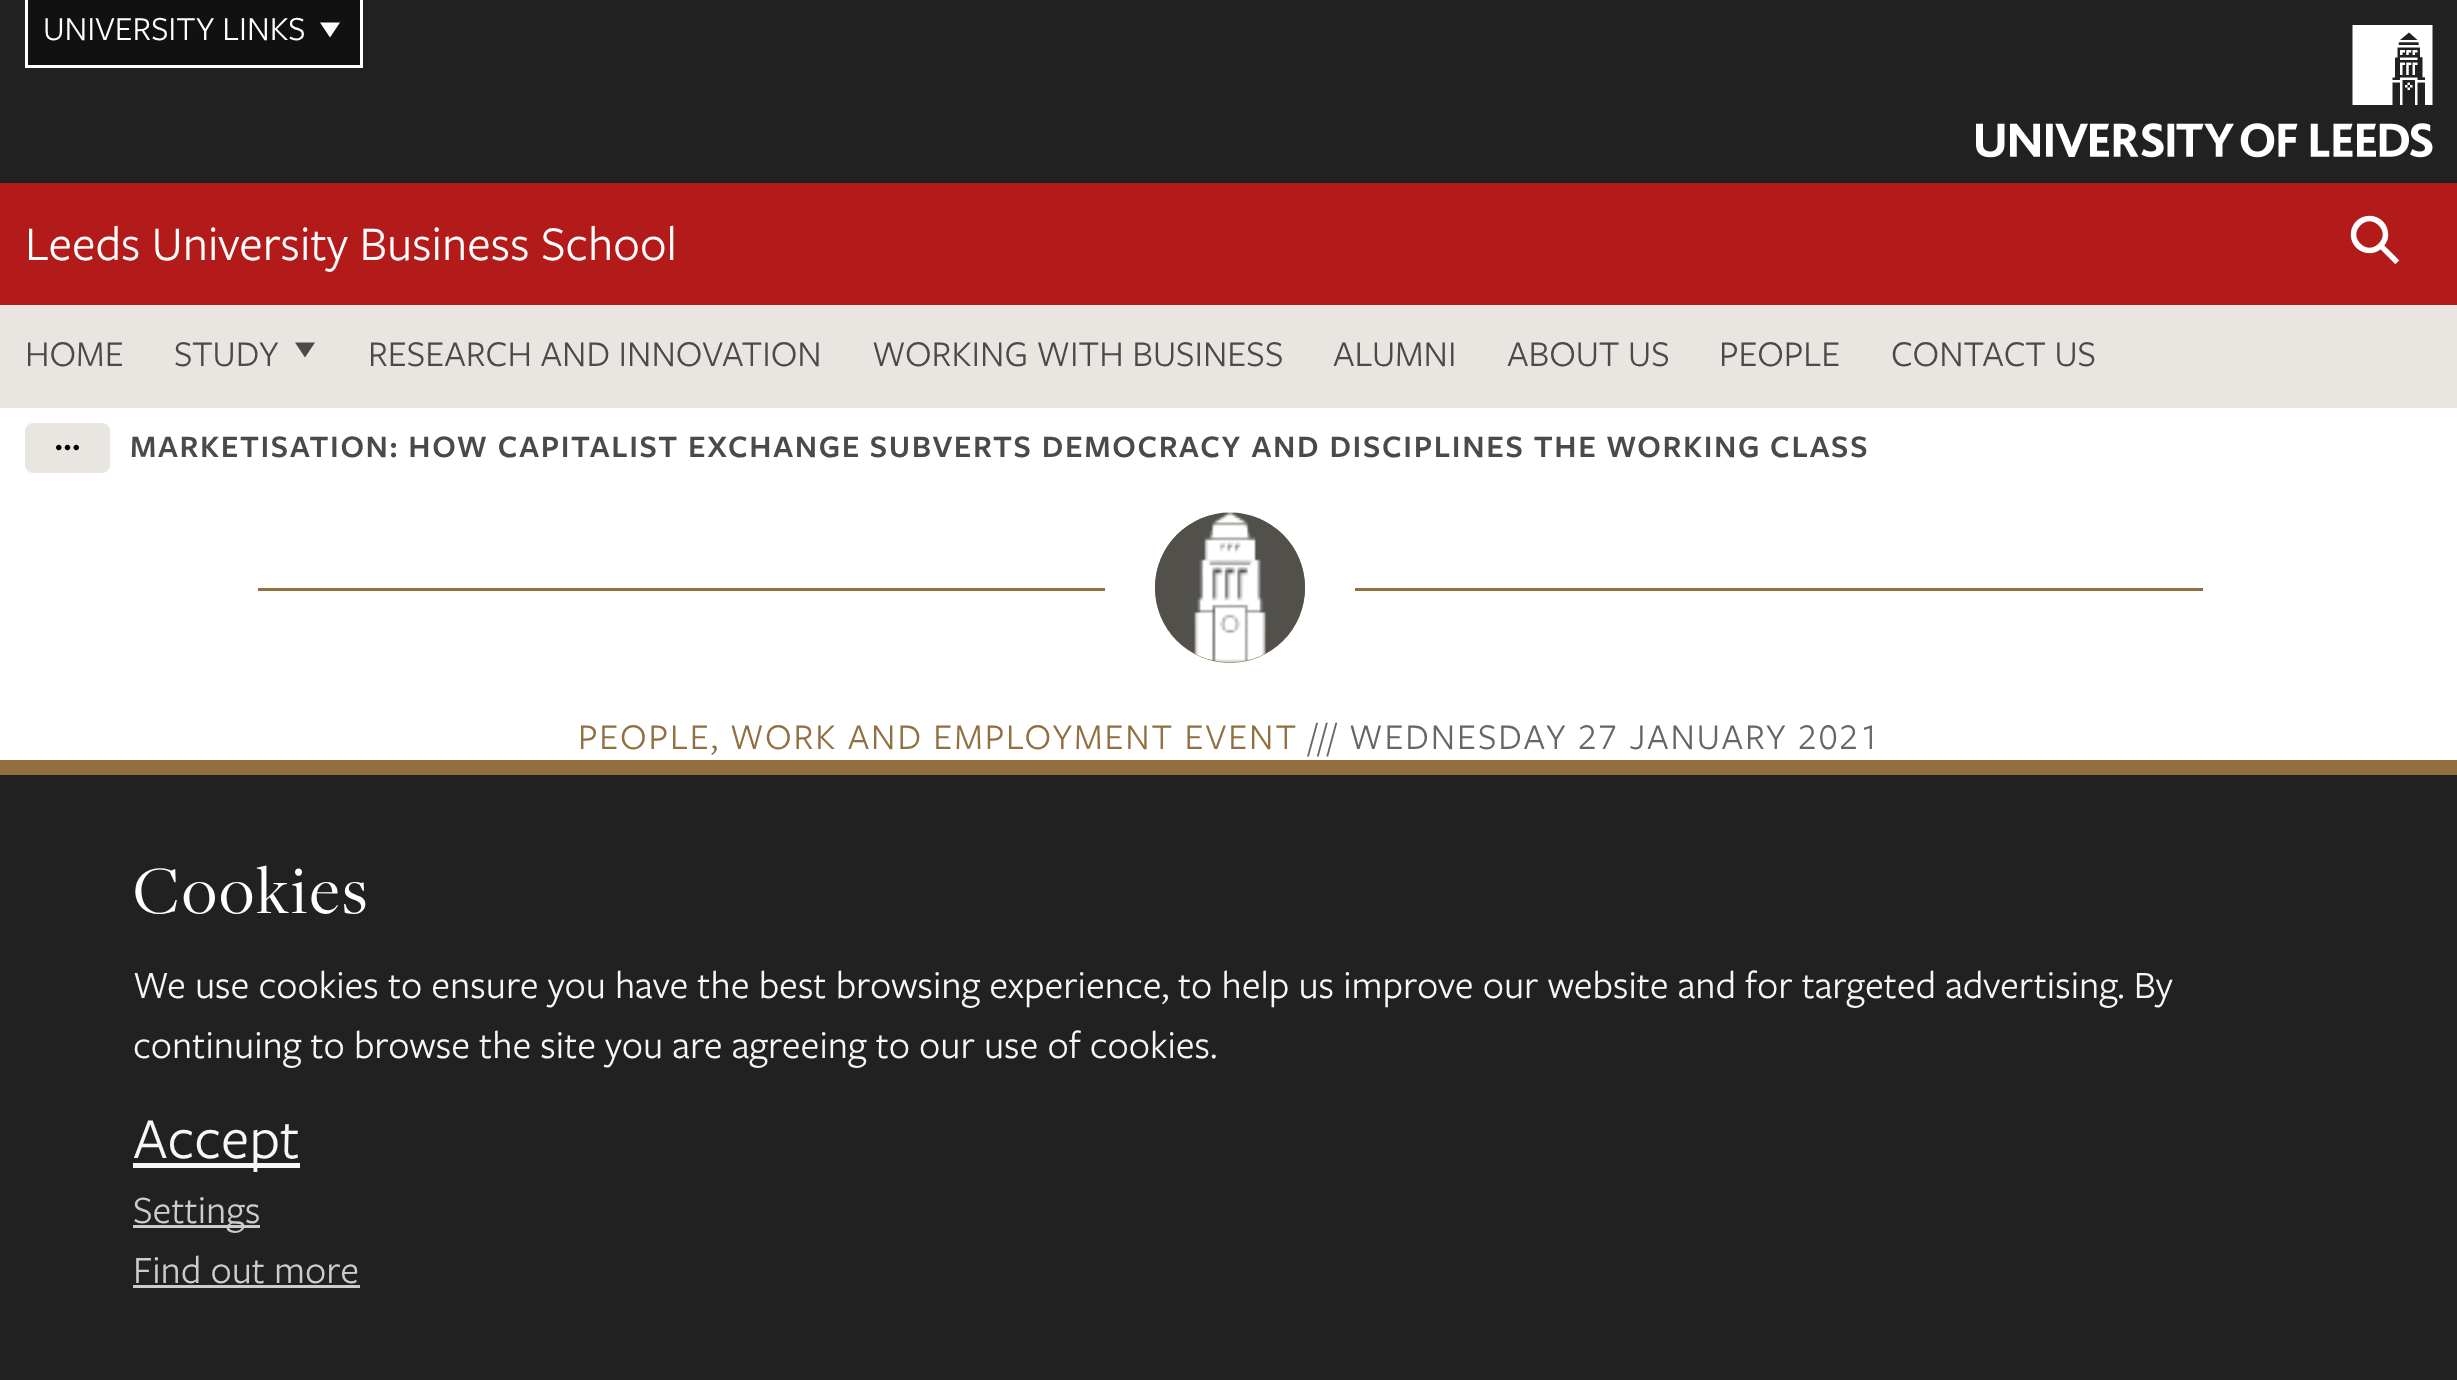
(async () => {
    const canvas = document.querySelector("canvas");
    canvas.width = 2457;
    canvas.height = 1380;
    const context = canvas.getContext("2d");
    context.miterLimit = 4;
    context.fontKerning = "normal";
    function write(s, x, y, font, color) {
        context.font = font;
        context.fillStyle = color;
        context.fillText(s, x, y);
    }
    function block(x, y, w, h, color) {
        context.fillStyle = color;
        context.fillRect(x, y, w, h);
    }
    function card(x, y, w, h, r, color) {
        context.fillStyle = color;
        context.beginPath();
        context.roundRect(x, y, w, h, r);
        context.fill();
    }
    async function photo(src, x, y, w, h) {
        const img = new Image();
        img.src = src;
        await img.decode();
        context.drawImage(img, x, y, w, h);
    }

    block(0, 0, 2457, 1380, "rgb(255, 255, 255)");
    block(0, 0, 2457, 183, "rgb(33, 33, 33)");
    await photo("media/1.png", 1976, 25, 457, 133);
    block(28, 0, 332, 65, "rgb(17, 17, 17)");
    block(360, 0, 3, 68, "rgb(255, 255, 255)");
    block(25, 65, 338, 3, "rgb(255, 255, 255)");
    block(25, 0, 3, 68, "rgb(255, 255, 255)");
    write("UNIVERSITY LINKS", 43, 40, "35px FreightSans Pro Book", "rgb(255, 255, 255)");
    context.beginPath();
    context.moveTo(340, 22.5);
    context.lineTo(330, 37.5);
    context.lineTo(320, 22.5);
    context.closePath();
    context.fill();
    block(0, 183, 2457, 122, "rgb(179, 27, 27)");
    write("Leeds University Business School", 25, 260, "50px FreightSans Pro Book", "rgb(255, 255, 255)");
    await photo("media/2.png", 2350, 215, 50, 50);
    block(0, 305, 2457, 103, "rgb(233, 229, 225)");
    write("HOME", 25, 366, "37.5px FreightSans Pro Book", "rgb(74, 74, 74)");
    write("STUDY", 174, 366, "37.5px FreightSans Pro Book", "rgb(74, 74, 74)");
    context.beginPath();
    context.moveTo(315, 342.5);
    context.lineTo(305, 357.5);
    context.lineTo(295, 342.5);
    context.closePath();
    context.fill();
    write("RESEARCH AND INNOVATION", 368, 366, "37.5px FreightSans Pro Book", "rgb(74, 74, 74)");
    write("WORKING WITH BUSINESS", 872, 366, "37.5px FreightSans Pro Book", "rgb(74, 74, 74)");
    write("ALUMNI", 1333, 366, "37.5px FreightSans Pro Book", "rgb(74, 74, 74)");
    write("ABOUT US", 1507, 366, "37.5px FreightSans Pro Book", "rgb(74, 74, 74)");
    write("PEOPLE", 1719, 366, "37.5px FreightSans Pro Book", "rgb(74, 74, 74)");
    write("CONTACT US", 1891, 366, "37.5px FreightSans Pro Book", "rgb(74, 74, 74)");
    card(25, 423, 85, 50, 8, "rgb(233, 229, 225)");
    await photo("media/3.png", 56, 444, 23, 7);
    context.letterSpacing = "1.62px";
    write("MARKETISATION: HOW CAPITALIST EXCHANGE SUBVERTS DEMOCRACY AND DISCIPLINES THE WORKING CLASS", 130, 457, "600 32.5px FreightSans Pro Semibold", "rgb(74, 74, 74)");
    block(258, 588, 847, 3, "rgb(145, 111, 64)");
    context.beginPath();
    context.arc(1230, 588, 75, 0, Math.PI * 2);
    context.fill();
    await photo("media/4.png", 1154, 512, 151, 151);
    block(1355, 588, 848, 3, "rgb(145, 111, 64)");
    context.letterSpacing = "1.9px";
    write("PEOPLE, WORK AND EMPLOYMENT EVENT", 578, 749, "37.5px FreightSans Pro Book", "rgb(145, 111, 64)");
    write("///", 1309, 749, "37.5px FreightSans Pro Book", "rgb(102, 102, 102)");
    write("WEDNESDAY 27 JANUARY 2021", 1349, 749, "37.5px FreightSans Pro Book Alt", "rgb(102, 102, 102)");
    block(0, 775, 2457, 605, "rgb(33, 33, 33)");
    block(0, 760, 2457, 15, "rgb(145, 111, 64)");
    context.letterSpacing = "2.5px";
    write("Cookies", 133, 913, "70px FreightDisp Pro", "rgb(255, 255, 255)");
    context.letterSpacing = "0px";
    write("We use cookies to ensure you have the best browsing experience, to help us improve our website and for targeted advertising. By", 133, 998, "40px FreightSans Pro Book", "rgb(247, 247, 247)");
    write("continuing to browse the site you are agreeing to our use of cookies.", 133, 1058, "40px FreightSans Pro Book", "rgb(247, 247, 247)");
    block(133, 1163, 167, 5, "rgb(247, 247, 247)");
    write("Accept", 133, 1158, "60px FreightSans Pro Book", "rgb(247, 247, 247)");
    block(133, 1225, 127, 3, "rgb(204, 204, 204)");
    write("Settings", 133, 1223, "40px FreightSans Pro Book", "rgb(204, 204, 204)");
    write("Find out more", 133, 1283, "40px FreightSans Pro Book", "rgb(204, 204, 204)");
    block(133, 1285, 227, 3, "rgb(204, 204, 204)");
})();
